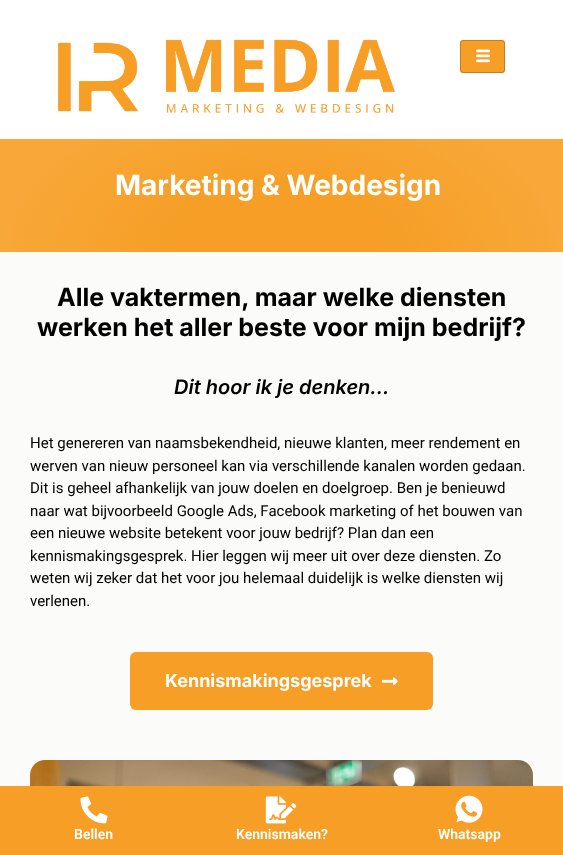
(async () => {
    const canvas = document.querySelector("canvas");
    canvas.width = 563;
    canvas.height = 855;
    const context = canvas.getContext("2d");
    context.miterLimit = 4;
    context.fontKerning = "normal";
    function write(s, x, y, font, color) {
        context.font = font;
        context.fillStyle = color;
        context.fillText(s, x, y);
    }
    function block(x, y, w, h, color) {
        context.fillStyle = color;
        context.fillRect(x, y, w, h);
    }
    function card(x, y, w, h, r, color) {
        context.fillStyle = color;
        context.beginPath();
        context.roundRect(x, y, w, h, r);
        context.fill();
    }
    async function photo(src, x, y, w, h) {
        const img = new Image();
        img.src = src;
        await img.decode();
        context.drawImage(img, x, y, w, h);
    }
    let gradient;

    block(0, 0, 563, 855, "rgb(255, 255, 255)");
    await photo("media/1.png", 58, 39, 337, 74);
    card(460, 40, 45, 33, 3, "rgb(246, 158, 37)");
    context.beginPath();
    context.roundRect(460.5, 40.5, 44, 32, 2.5);
    context.strokeStyle = "rgba(0, 0, 0, 0.2)";
    context.stroke();
    await photo("media/2.png", 476, 49, 14, 14);
    gradient = context.createRadialGradient(282, 434.18, 0, 282, 434.18, 398);
    gradient.addColorStop(0.25, "rgb(246, 158, 37)");
    gradient.addColorStop(0.72, "rgb(248, 168, 57)");
    context.fillStyle = gradient;
    context.beginPath();
    context.rect(0, 139, 563, 113);
    context.save();
    context.clip();
    context.scale(1, 231 / 398);
    context.fillRect(0, 0, 563, 1474);
    context.restore();
    write("Marketing & Webdesign", 115, 195, "bold 28px Inter", "rgb(255, 255, 255)");
    block(0, 252, 563, 534, "rgb(251, 251, 250)");
    write("Alle vaktermen, maar welke diensten", 57, 306, "bold 25px Inter", "rgb(0, 0, 0)");
    write("werken het aller beste voor mijn bedrijf?", 37, 336, "bold 25px Inter", "rgb(0, 0, 0)");
    write("Dit hoor ik je denken…", 174, 394, "italic 600 20px Inter", "rgb(0, 0, 0)");
    write("Het genereren van naamsbekendheid, nieuwe klanten, meer rendement en", 30, 448, "15px Roboto", "rgb(0, 0, 0)");
    write("werven van nieuw personeel kan via verschillende kanalen worden gedaan.", 30, 471, "15px Roboto", "rgb(0, 0, 0)");
    write("Dit is geheel afhankelijk van jouw doelen en doelgroep. Ben je benieuwd", 30, 493, "15px Roboto", "rgb(0, 0, 0)");
    write("naar wat bijvoorbeeld Google Ads, Facebook marketing of het bouwen van", 30, 516, "15px Roboto", "rgb(0, 0, 0)");
    write("een nieuwe website betekent voor jouw bedrijf? Plan dan een", 30, 538, "15px Roboto", "rgb(0, 0, 0)");
    write("kennismakingsgesprek. Hier leggen wij meer uit over deze diensten. Zo", 30, 561, "15px Roboto", "rgb(0, 0, 0)");
    write("weten wij zeker dat het voor jou helemaal duidelijk is welke diensten wij", 30, 583, "15px Roboto", "rgb(0, 0, 0)");
    write("verlenen.", 30, 606, "15px Roboto", "rgb(0, 0, 0)");
    card(130, 652, 303, 58, 6, "rgb(246, 158, 37)");
    write("Kennismakingsgesprek", 165, 687, "bold 18px Inter", "rgb(255, 255, 255)");
    await photo("media/3.png", 382, 677, 16, 9);
    await photo("media/4.png", 30, 760, 503, 26);
    block(0, 786, 563, 69, "rgb(246, 158, 37)");
    await photo("media/5.png", 80, 796, 28, 28);
    write("Bellen", 74, 839, "600 14px Roboto", "rgb(255, 255, 255)");
    await photo("media/6.png", 265, 796, 32, 28);
    write("Kennismaken?", 236, 839, "600 14px Roboto", "rgb(255, 255, 255)");
    await photo("media/7.png", 455, 795, 28, 28);
    write("Whatsapp", 438, 839, "600 14px Roboto", "rgb(255, 255, 255)");
})();
